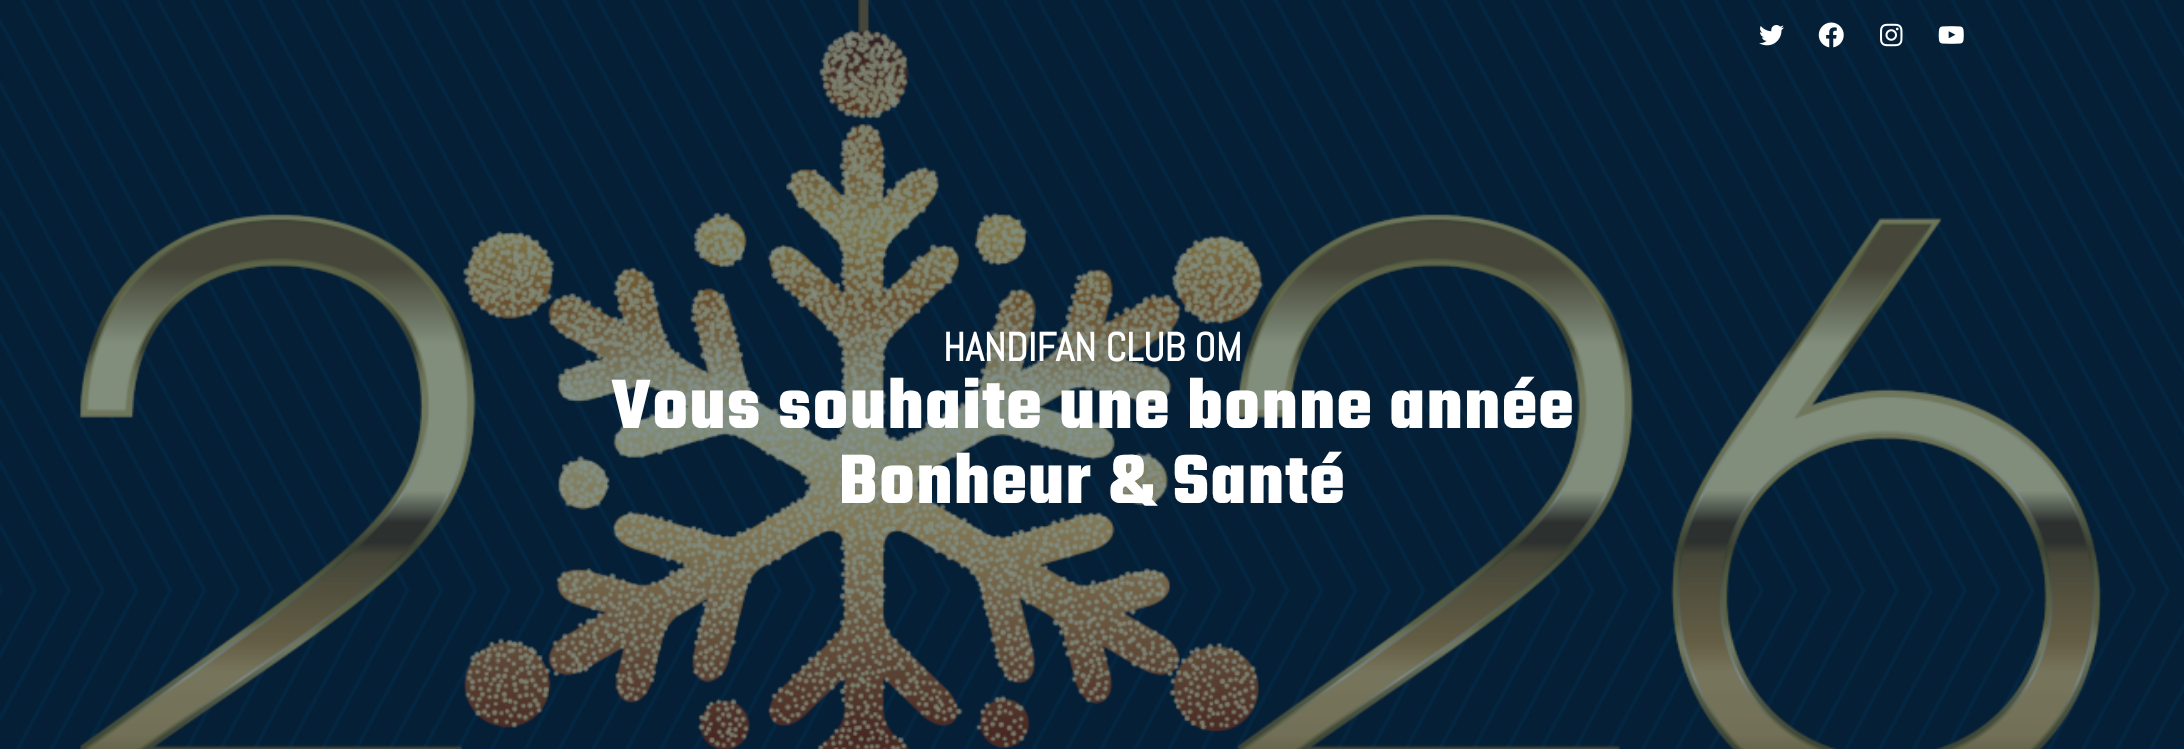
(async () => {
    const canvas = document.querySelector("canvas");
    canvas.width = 2184;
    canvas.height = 749;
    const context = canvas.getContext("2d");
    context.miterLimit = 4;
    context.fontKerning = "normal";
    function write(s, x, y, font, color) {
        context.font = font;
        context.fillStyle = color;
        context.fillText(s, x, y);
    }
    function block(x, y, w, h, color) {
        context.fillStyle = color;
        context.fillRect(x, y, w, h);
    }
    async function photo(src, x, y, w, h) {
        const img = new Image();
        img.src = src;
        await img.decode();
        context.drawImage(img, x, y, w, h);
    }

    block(0, 0, 2184, 749, "rgb(255, 255, 255)");
    await photo("media/5.png", 0, 0, 2184, 749);
    await photo("media/1.png", 1759, 25, 25, 21);
    await photo("media/2.png", 1818, 22, 26, 26);
    await photo("media/3.png", 1880, 23, 23, 24);
    await photo("media/4.png", 1938, 26, 26, 18);
    write("HANDIFAN CLUB OM", 943, 361, "bold 40px Abel", "rgb(255, 255, 255)");
    context.letterSpacing = "1.25px";
    write("Vous souhaite une bonne année", 611, 428, "bold 75px Teko", "rgb(255, 255, 255)");
    write("Bonheur & Santé", 839, 503, "bold 75px Teko", "rgb(255, 255, 255)");
})();
